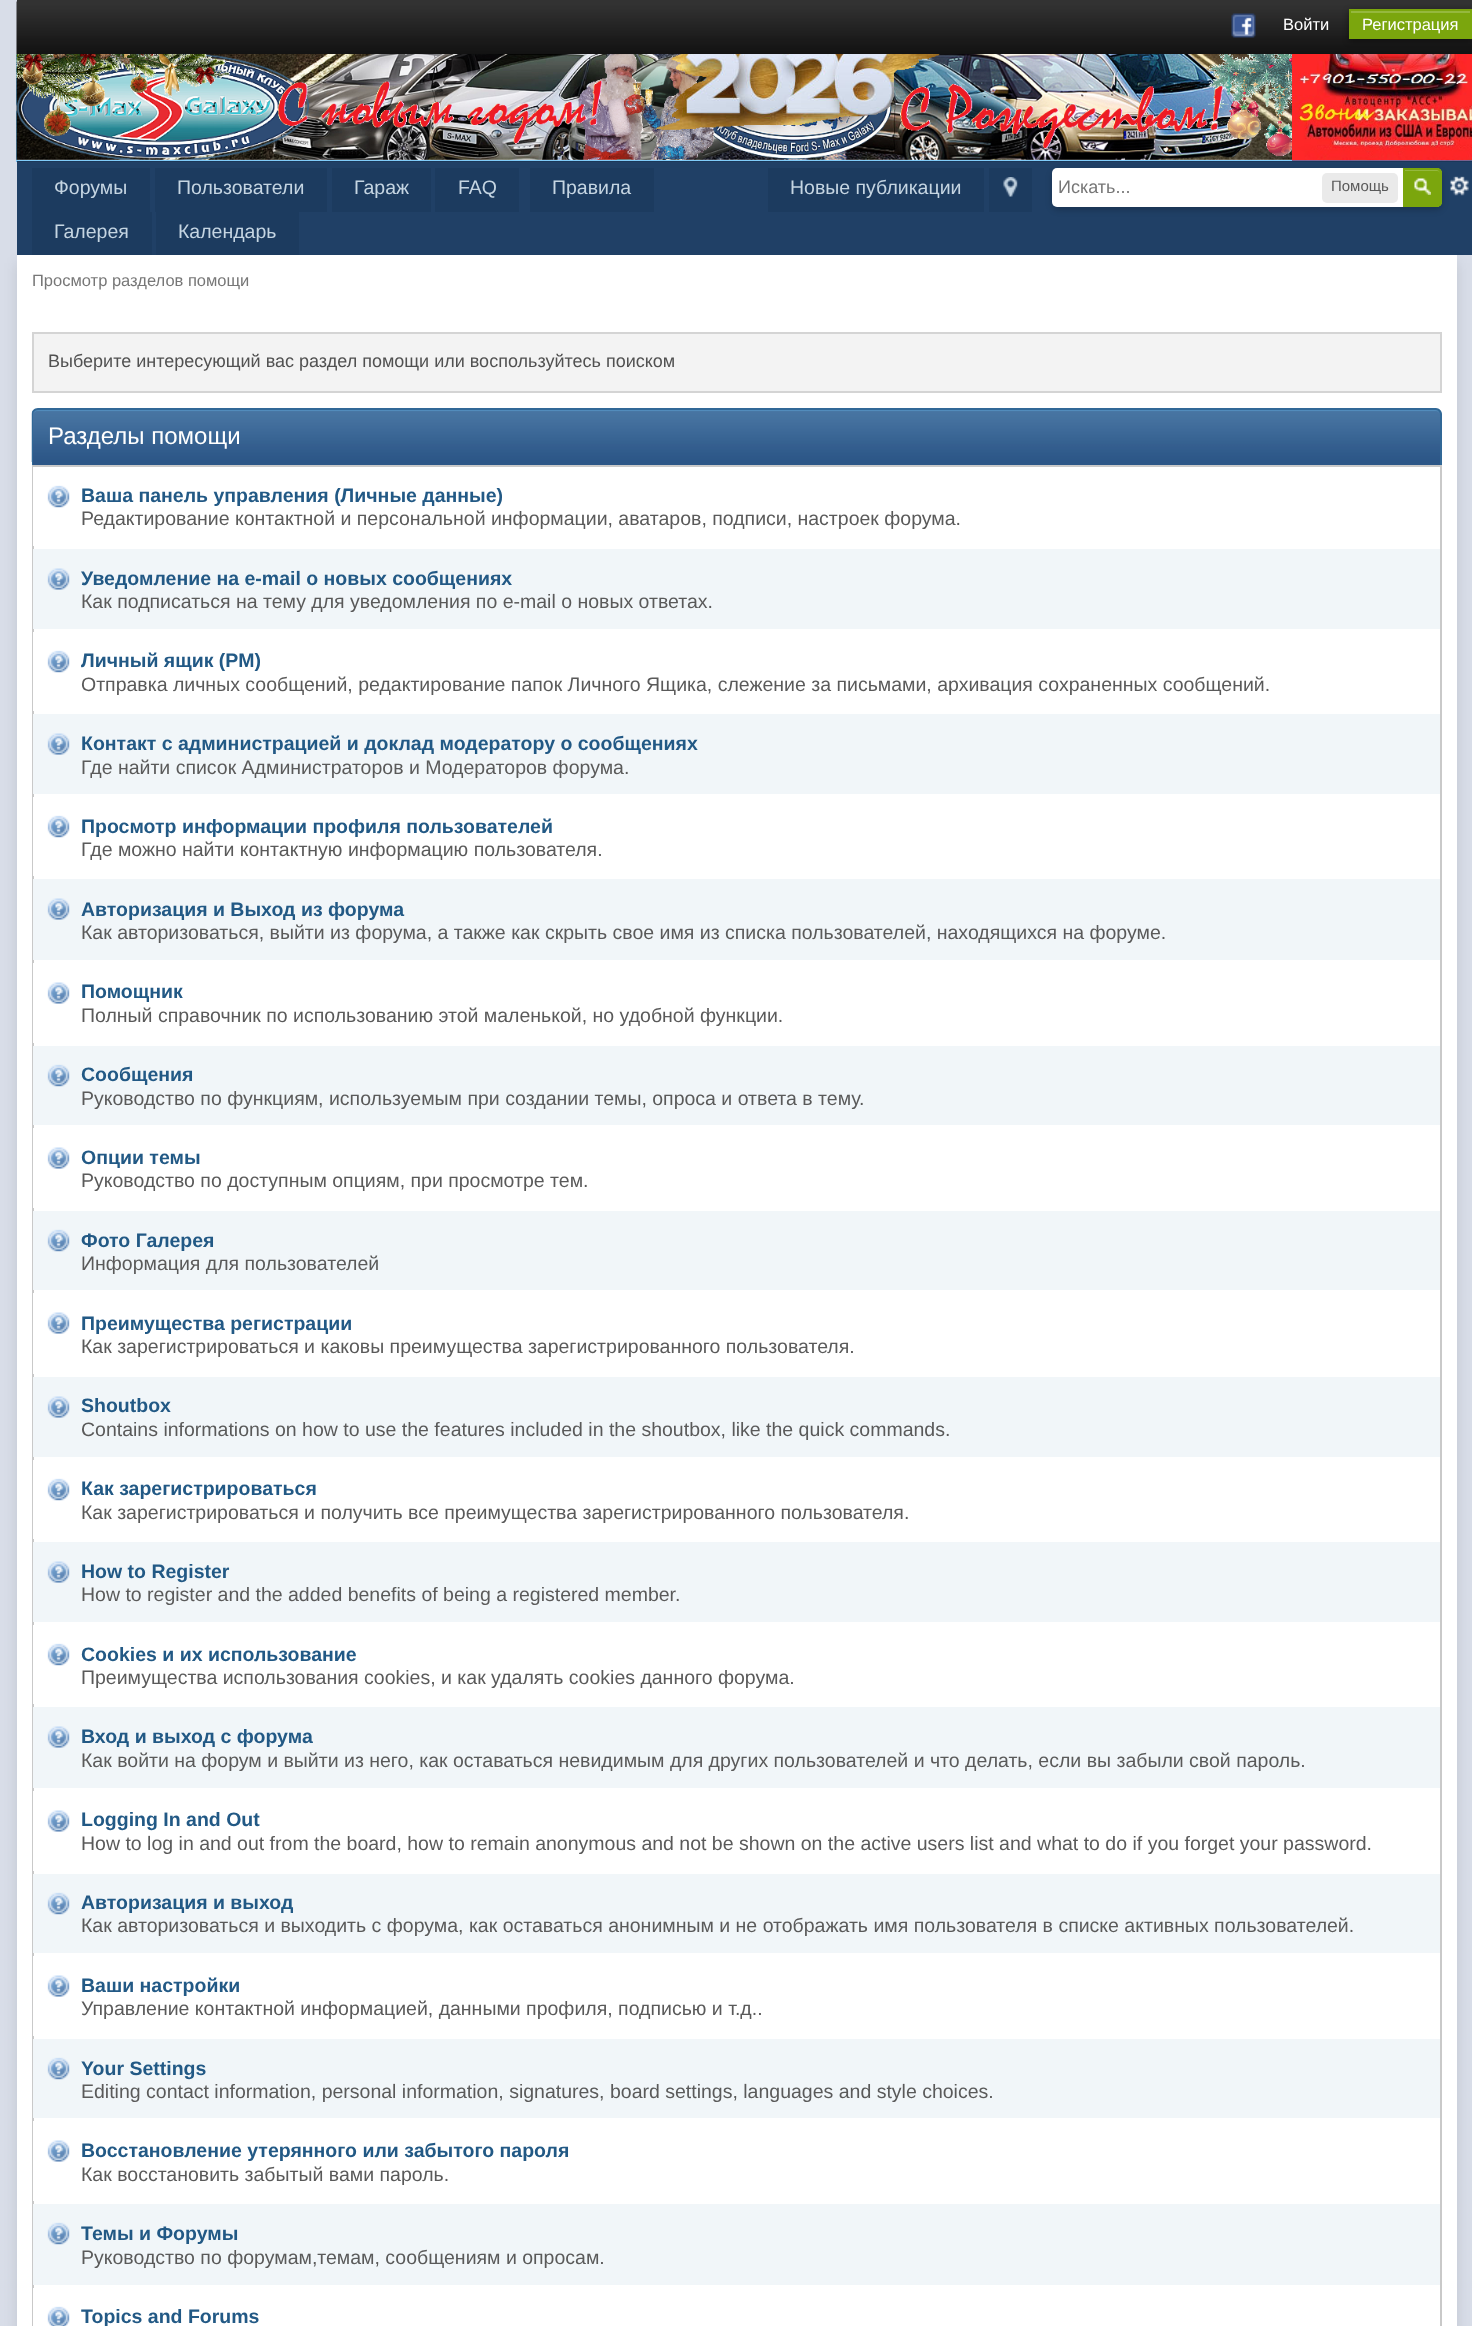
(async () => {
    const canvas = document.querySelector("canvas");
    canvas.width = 1472;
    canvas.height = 2326;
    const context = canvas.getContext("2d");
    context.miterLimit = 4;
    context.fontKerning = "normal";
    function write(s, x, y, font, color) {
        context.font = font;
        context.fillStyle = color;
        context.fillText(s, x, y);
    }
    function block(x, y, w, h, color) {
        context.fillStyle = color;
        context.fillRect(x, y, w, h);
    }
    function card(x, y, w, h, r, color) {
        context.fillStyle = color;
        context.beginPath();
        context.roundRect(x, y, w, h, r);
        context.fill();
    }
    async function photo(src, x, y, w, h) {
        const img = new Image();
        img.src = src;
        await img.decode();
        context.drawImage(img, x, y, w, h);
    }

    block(0, 0, 1472, 2326, "rgb(216, 221, 232)");
    block(17, 0, 1455, 2, "rgb(50, 50, 50)");
    await photo("media/1.png", 16, 1, 1456, 53);
    await photo("media/2.png", 1231, 13, 25, 25);
    write("Войти", 1283, 30, "16.5px Liberation Sans", "rgb(255, 255, 255)");
    context.fillStyle = "rgba(0, 0, 0, 0.4)";
    context.filter = "blur(3px)";
    context.beginPath();
    context.rect(1349, 11, 123, 30);
    context.fill();
    context.filter = "none";
    block(1351, 13, 119, 24, "rgb(123, 166, 13)");
    block(1350, 11, 120, 2, "rgb(149, 184, 61)");
    context.strokeStyle = "rgb(123, 166, 13)";
    context.lineWidth = 2;
    context.strokeRect(1350, 10, 121, 28);
    write("Регистрация", 1362, 30, "16.5px Liberation Sans", "rgb(255, 255, 255)");
    block(17, 162, 1455, 93, "rgb(32, 64, 102)");
    block(32, 168, 118, 44, "rgb(28, 59, 95)");
    write("Форумы", 54, 194, "19.5px Liberation Sans", "rgb(197, 213, 226)");
    block(155, 168, 172, 44, "rgb(28, 59, 95)");
    write("Пользователи", 177, 194, "19.5px Liberation Sans", "rgb(197, 213, 226)");
    block(332, 168, 99, 44, "rgb(28, 59, 95)");
    write("Гараж", 354, 194, "19.5px Liberation Sans", "rgb(197, 213, 226)");
    block(435, 168, 84, 44, "rgb(28, 59, 95)");
    write("FAQ", 458, 194, "19.5px Liberation Sans", "rgb(197, 213, 226)");
    block(530, 168, 124, 44, "rgb(28, 59, 95)");
    write("Правила", 552, 194, "19.5px Liberation Sans", "rgb(197, 213, 226)");
    block(768, 168, 216, 44, "rgb(28, 59, 95)");
    write("Новые публикации", 790, 194, "19.5px Liberation Sans", "rgb(197, 213, 226)");
    block(989, 168, 43, 44, "rgb(28, 59, 95)");
    await photo("media/3.png", 1003, 177, 15, 20);
    context.fillStyle = "rgba(0, 0, 0, 0.1)";
    context.filter = "blur(7px)";
    context.beginPath();
    context.rect(17, 263, 1440, 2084);
    context.fill();
    context.filter = "none";
    block(32, 212, 120, 43, "rgb(28, 59, 95)");
    write("Галерея", 54, 238, "19.5px Liberation Sans", "rgb(197, 213, 226)");
    block(156, 212, 143, 43, "rgb(28, 59, 95)");
    write("Календарь", 178, 238, "19.5px Liberation Sans", "rgb(197, 213, 226)");
    await photo("media/4.png", 16, 54, 1456, 108);
    block(17, 161, 1455, 1, "rgb(27, 55, 89)");
    await photo("media/5.png", 16, 54, 1456, 107);
    await photo("media/7.png", 1450, 176, 19, 20);
    context.fillStyle = "rgba(0, 0, 0, 0.2)";
    context.filter = "blur(3px)";
    context.beginPath();
    context.roundRect(1052, 171, 390, 39, 6);
    context.fill();
    context.filter = "none";
    context.fillStyle = "rgb(255, 255, 255)";
    context.beginPath();
    context.roundRect(1052, 168, 390, 39, [5, 6, 6, 5]);
    context.fill();
    write("Искать...", 1058, 193, "18px Liberation Sans", "rgb(119, 119, 119)");
    card(1322, 173, 76, 30, 5, "rgb(234, 234, 234)");
    write("Помощь", 1331, 191, "15px Liberation Sans", "rgb(90, 90, 90)");
    context.fillStyle = "rgb(123, 166, 13)";
    context.beginPath();
    context.roundRect(1403, 168, 39, 39, [0, 5, 5, 0]);
    context.fill();
    await photo("media/6.png", 1414, 178, 17, 17);
    context.fillStyle = "rgb(149, 184, 61)";
    context.beginPath();
    context.moveTo(1404, 171);
    context.lineTo(1437, 171);
    context.bezierCurveTo(1439, 171, 1440, 172, 1440, 174);
    context.lineTo(1440, 173);
    context.bezierCurveTo(1440, 171.5, 1438.5, 170, 1437, 170);
    context.lineTo(1404, 170);
    context.closePath();
    context.fill();
    context.beginPath();
    context.roundRect(1404, 169, 37, 37, [0, 4, 4, 0]);
    context.stroke();
    block(17, 255, 1440, 2071, "rgb(255, 255, 255)");
    write("Просмотр разделов помощи", 32, 286, "16.5px Liberation Sans", "rgb(119, 119, 119)");
    context.fillStyle = "rgb(243, 243, 243)";
    context.beginPath();
    context.rect(33, 333, 1408, 59);
    context.fill();
    context.strokeStyle = "rgb(212, 212, 212)";
    context.stroke();
    write("Выберите интересующий вас раздел помощи или воспользуйтесь поиском", 48, 367, "18px Liberation Sans", "rgb(81, 81, 81)");
    block(33, 462, 1407, 3, "rgb(44, 86, 135)");
    await photo("media/8.png", 31, 409, 1411, 53);
    context.fillStyle = "rgb(82, 140, 188)";
    context.beginPath();
    context.moveTo(38, 411);
    context.lineTo(1436, 411);
    context.bezierCurveTo(1438, 411, 1440, 413, 1440, 416);
    context.bezierCurveTo(1440, 413, 1438, 410, 1435, 410);
    context.lineTo(38, 410);
    context.bezierCurveTo(35, 410, 33, 413, 33, 416);
    context.bezierCurveTo(33, 413, 35, 411, 38, 411);
    context.closePath();
    context.fill();
    context.fillStyle = "rgb(49, 104, 151)";
    context.beginPath();
    context.moveTo(38, 408);
    context.lineTo(1436, 408);
    context.bezierCurveTo(1439, 408, 1442, 411, 1442, 414);
    context.lineTo(1442, 465);
    context.lineTo(32, 465);
    context.lineTo(32, 414);
    context.bezierCurveTo(32, 411, 34, 408, 38, 408);
    context.closePath();
    context.moveTo(38, 410);
    context.lineTo(1436, 410);
    context.bezierCurveTo(1438, 410, 1440, 412, 1440, 414);
    context.lineTo(1440, 465);
    context.lineTo(33, 465);
    context.lineTo(33, 414);
    context.bezierCurveTo(33, 412, 35, 410, 38, 410);
    context.closePath();
    context.fill("evenodd");
    write("Разделы помощи", 48, 444, "24px Liberation Sans", "rgb(255, 255, 255)");
    context.strokeStyle = "rgb(201, 201, 201)";
    context.strokeRect(33, 466, 1408, 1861);
    block(33, 467, 1, 79, "rgb(255, 255, 255)");
    await photo("media/9.png", 47, 485, 23, 23);
    write("Ваша панель управления (Личные данные)", 81, 502, "bold 19.5px Liberation Sans", "rgb(34, 89, 133)");
    write("Редактирование контактной и персональной информации, аватаров, подписи, настроек форума.", 81, 525, "19.5px Liberation Sans", "rgb(90, 90, 90)");
    block(33, 549, 1407, 80, "rgb(241, 246, 249)");
    await photo("media/10.png", 47, 568, 23, 22);
    write("Уведомление на e-mail о новых сообщениях", 81, 585, "bold 19.5px Liberation Sans", "rgb(34, 89, 133)");
    write("Как подписаться на тему для уведомления по e-mail о новых ответах.", 81, 608, "19.5px Liberation Sans", "rgb(90, 90, 90)");
    block(33, 632, 1, 79, "rgb(255, 255, 255)");
    await photo("media/9.png", 47, 650, 23, 23);
    write("Личный ящик (PM)", 81, 667, "bold 19.5px Liberation Sans", "rgb(34, 89, 133)");
    write("Отправка личных сообщений, редактирование папок Личного Ящика, слежение за письмами, архивация сохраненных сообщений.", 81, 691, "19.5px Liberation Sans", "rgb(90, 90, 90)");
    block(33, 714, 1407, 80, "rgb(241, 246, 249)");
    await photo("media/10.png", 47, 733, 23, 22);
    write("Контакт с администрацией и доклад модератору о сообщениях", 81, 750, "bold 19.5px Liberation Sans", "rgb(34, 89, 133)");
    write("Где найти список Администраторов и Модераторов форума.", 81, 774, "19.5px Liberation Sans", "rgb(90, 90, 90)");
    block(33, 797, 1, 79, "rgb(255, 255, 255)");
    await photo("media/9.png", 47, 815, 23, 23);
    write("Просмотр информации профиля пользователей", 81, 833, "bold 19.5px Liberation Sans", "rgb(34, 89, 133)");
    write("Где можно найти контактную информацию пользователя.", 81, 856, "19.5px Liberation Sans", "rgb(90, 90, 90)");
    block(33, 879, 1407, 81, "rgb(241, 246, 249)");
    await photo("media/10.png", 47, 898, 23, 22);
    write("Авторизация и Выход из форума", 81, 916, "bold 19.5px Liberation Sans", "rgb(34, 89, 133)");
    write("Как авторизоваться, выйти из форума, а также как скрыть свое имя из списка пользователей, находящихся на форуме.", 81, 939, "19.5px Liberation Sans", "rgb(90, 90, 90)");
    block(33, 963, 1, 80, "rgb(255, 255, 255)");
    await photo("media/11.png", 47, 982, 23, 22);
    write("Помощник", 81, 998, "bold 19.5px Liberation Sans", "rgb(34, 89, 133)");
    write("Полный справочник по использованию этой маленькой, но удобной функции.", 81, 1022, "19.5px Liberation Sans", "rgb(90, 90, 90)");
    block(33, 1046, 1407, 79, "rgb(241, 246, 249)");
    await photo("media/12.png", 47, 1064, 23, 23);
    write("Сообщения", 81, 1081, "bold 19.5px Liberation Sans", "rgb(34, 89, 133)");
    write("Руководство по функциям, используемым при создании темы, опроса и ответа в тему.", 81, 1105, "19.5px Liberation Sans", "rgb(90, 90, 90)");
    block(33, 1128, 1, 80, "rgb(255, 255, 255)");
    await photo("media/11.png", 47, 1147, 23, 22);
    write("Опции темы", 81, 1164, "bold 19.5px Liberation Sans", "rgb(34, 89, 133)");
    write("Руководство по доступным опциям, при просмотре тем.", 81, 1187, "19.5px Liberation Sans", "rgb(90, 90, 90)");
    block(33, 1211, 1407, 79, "rgb(241, 246, 249)");
    await photo("media/12.png", 47, 1229, 23, 23);
    write("Фото Галерея", 81, 1247, "bold 19.5px Liberation Sans", "rgb(34, 89, 133)");
    write("Информация для пользователей", 81, 1270, "19.5px Liberation Sans", "rgb(90, 90, 90)");
    block(33, 1293, 1, 81, "rgb(255, 255, 255)");
    await photo("media/11.png", 47, 1312, 23, 22);
    write("Преимущества регистрации", 81, 1330, "bold 19.5px Liberation Sans", "rgb(34, 89, 133)");
    write("Как зарегистрироваться и каковы преимущества зарегистрированного пользователя.", 81, 1353, "19.5px Liberation Sans", "rgb(90, 90, 90)");
    block(33, 1377, 1407, 80, "rgb(241, 246, 249)");
    await photo("media/10.png", 47, 1396, 23, 22);
    write("Shoutbox", 81, 1412, "bold 19.5px Liberation Sans", "rgb(34, 89, 133)");
    write("Contains informations on how to use the features included in the shoutbox, like the quick commands.", 81, 1436, "19.5px Liberation Sans", "rgb(90, 90, 90)");
    block(33, 1460, 1, 79, "rgb(255, 255, 255)");
    await photo("media/9.png", 47, 1478, 23, 23);
    write("Как зарегистрироваться", 81, 1495, "bold 19.5px Liberation Sans", "rgb(34, 89, 133)");
    write("Как зарегистрироваться и получить все преимущества зарегистрированного пользователя.", 81, 1519, "19.5px Liberation Sans", "rgb(90, 90, 90)");
    block(33, 1542, 1407, 80, "rgb(241, 246, 249)");
    await photo("media/10.png", 47, 1561, 23, 22);
    write("How to Register", 81, 1578, "bold 19.5px Liberation Sans", "rgb(34, 89, 133)");
    write("How to register and the added benefits of being a registered member.", 81, 1601, "19.5px Liberation Sans", "rgb(90, 90, 90)");
    block(33, 1625, 1, 79, "rgb(255, 255, 255)");
    await photo("media/9.png", 47, 1643, 23, 23);
    write("Cookies и их использование", 81, 1661, "bold 19.5px Liberation Sans", "rgb(34, 89, 133)");
    write("Преимущества использования cookies, и как удалять cookies данного форума.", 81, 1684, "19.5px Liberation Sans", "rgb(90, 90, 90)");
    block(33, 1707, 1407, 81, "rgb(241, 246, 249)");
    await photo("media/10.png", 47, 1726, 23, 22);
    write("Вход и выход с форума", 81, 1743, "bold 19.5px Liberation Sans", "rgb(34, 89, 133)");
    write("Как войти на форум и выйти из него, как оставаться невидимым для других пользователей и что делать, если вы забыли свой пароль.", 81, 1767, "19.5px Liberation Sans", "rgb(90, 90, 90)");
    block(33, 1791, 1, 80, "rgb(255, 255, 255)");
    await photo("media/11.png", 47, 1810, 23, 22);
    write("Logging In and Out", 81, 1826, "bold 19.5px Liberation Sans", "rgb(34, 89, 133)");
    write("How to log in and out from the board, how to remain anonymous and not be shown on the active users list and what to do if you forget your password.", 81, 1850, "19.5px Liberation Sans", "rgb(90, 90, 90)");
    block(33, 1874, 1407, 79, "rgb(241, 246, 249)");
    await photo("media/12.png", 47, 1892, 23, 23);
    write("Авторизация и выход", 81, 1909, "bold 19.5px Liberation Sans", "rgb(34, 89, 133)");
    write("Как авторизоваться и выходить с форума, как оставаться анонимным и не отображать имя пользователя в списке активных пользователей.", 81, 1932, "19.5px Liberation Sans", "rgb(90, 90, 90)");
    block(33, 1956, 1, 80, "rgb(255, 255, 255)");
    await photo("media/11.png", 47, 1975, 23, 22);
    write("Ваши настройки", 81, 1992, "bold 19.5px Liberation Sans", "rgb(34, 89, 133)");
    write("Управление контактной информацией, данными профиля, подписью и т.д..", 81, 2015, "19.5px Liberation Sans", "rgb(90, 90, 90)");
    block(33, 2039, 1407, 79, "rgb(241, 246, 249)");
    await photo("media/12.png", 47, 2057, 23, 23);
    write("Your Settings", 81, 2075, "bold 19.5px Liberation Sans", "rgb(34, 89, 133)");
    write("Editing contact information, personal information, signatures, board settings, languages and style choices.", 81, 2098, "19.5px Liberation Sans", "rgb(90, 90, 90)");
    block(33, 2121, 1, 80, "rgb(255, 255, 255)");
    await photo("media/11.png", 47, 2140, 23, 22);
    write("Восстановление утерянного или забытого пароля", 81, 2157, "bold 19.5px Liberation Sans", "rgb(34, 89, 133)");
    write("Как восстановить забытый вами пароль.", 81, 2181, "19.5px Liberation Sans", "rgb(90, 90, 90)");
    block(33, 2204, 1407, 81, "rgb(241, 246, 249)");
    await photo("media/12.png", 47, 2222, 23, 23);
    write("Темы и Форумы", 81, 2240, "bold 19.5px Liberation Sans", "rgb(34, 89, 133)");
    write("Руководство по форумам,темам, сообщениям и опросам.", 81, 2264, "19.5px Liberation Sans", "rgb(90, 90, 90)");
    block(33, 2288, 1, 38, "rgb(255, 255, 255)");
    await photo("media/13.png", 47, 2306, 23, 20);
    write("Topics and Forums", 81, 2323, "bold 19.5px Liberation Sans", "rgb(34, 89, 133)");
})();
